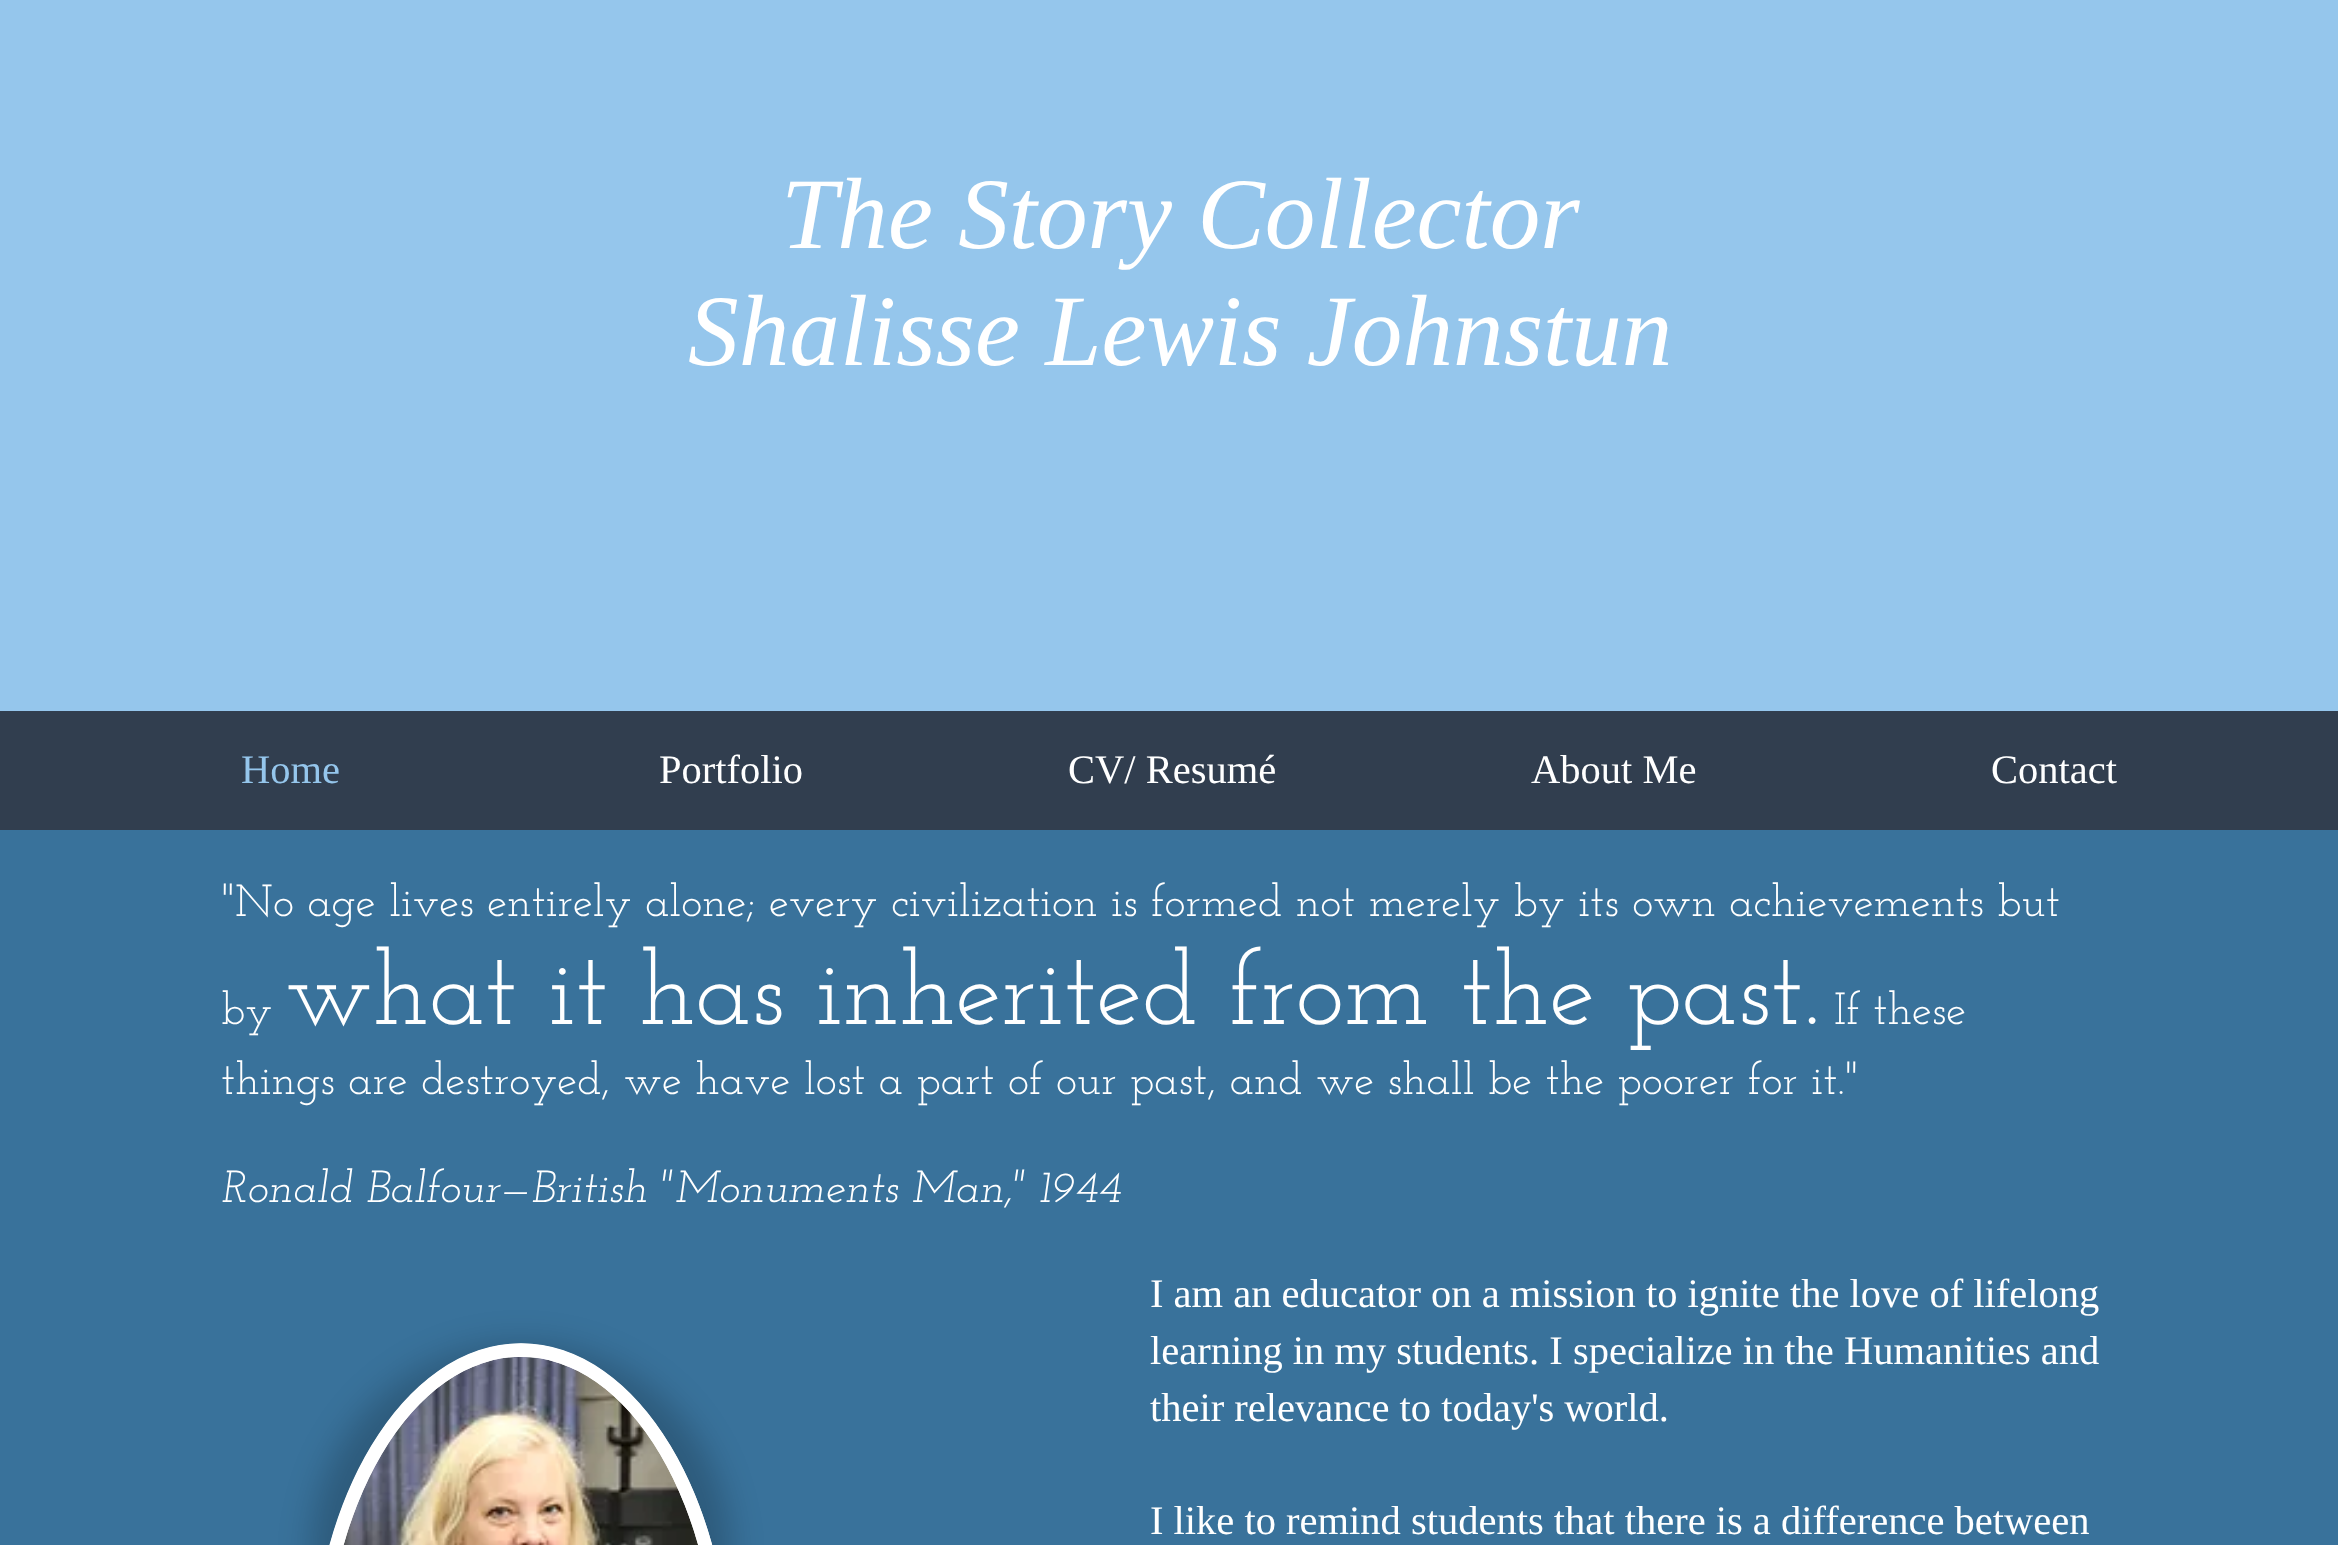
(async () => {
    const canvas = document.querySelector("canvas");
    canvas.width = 2338;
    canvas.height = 1545;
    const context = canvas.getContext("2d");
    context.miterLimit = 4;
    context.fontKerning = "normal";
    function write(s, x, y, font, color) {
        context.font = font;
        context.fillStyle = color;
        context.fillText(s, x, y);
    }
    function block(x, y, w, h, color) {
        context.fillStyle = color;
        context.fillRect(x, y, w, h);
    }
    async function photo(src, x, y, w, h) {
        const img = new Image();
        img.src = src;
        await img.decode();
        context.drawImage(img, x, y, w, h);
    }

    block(0, 0, 2338, 1545, "rgb(57, 114, 155)");
    block(0, 0, 2338, 711, "rgb(149, 198, 236)");
    write("The Story Collector", 781, 248, "italic 101.25px Liberation Serif", "rgb(255, 255, 255)");
    write("Shalisse Lewis Johnstun", 688, 365, "italic 101.25px Liberation Serif", "rgb(255, 255, 255)");
    block(0, 711, 2338, 119, "rgb(49, 62, 79)");
    write("Home", 241, 783, "40.5px Liberation Serif", "rgb(149, 198, 236)");
    write("Portfolio", 659, 783, "40.5px Liberation Serif", "rgb(255, 255, 255)");
    write("CV/ Resumé", 1068, 783, "40.5px Liberation Serif", "rgb(255, 255, 255)");
    write("About Me", 1531, 783, "40.5px Liberation Serif", "rgb(255, 255, 255)");
    write("Contact", 1991, 783, "40.5px Liberation Serif", "rgb(255, 255, 255)");
    write("\"No age lives entirely alone; every civilization is formed not merely by its own achievements but", 221, 916, "45px Josefin Slab", "rgb(255, 255, 255)");
    write("by", 221, 1024, "45px Josefin Slab", "rgb(255, 255, 255)");
    write("what it has inherited from the past.", 285, 1024, "103.5px Josefin Slab", "rgb(255, 255, 255)");
    write("If these", 1834, 1024, "45px Josefin Slab", "rgb(255, 255, 255)");
    write("things are destroyed, we have lost a part of our past, and we shall be the poorer for it.\"", 221, 1094, "45px Josefin Slab", "rgb(255, 255, 255)");
    write("Ronald Balfour—British \"Monuments Man,\" 1944", 221, 1202, "italic 45px Josefin Slab", "rgb(255, 255, 255)");
    context.fillStyle = "rgba(0, 0, 0, 0.2)";
    context.filter = "blur(16px)";
    context.beginPath();
    context.roundRect(311, 1343, 420, 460, 210);
    context.fill();
    context.filter = "none";
    context.fillStyle = "rgb(255, 255, 255)";
    context.beginPath();
    context.ellipse(521, 1690, 210.5, 346.5, 0, 0, Math.PI * 2);
    context.fill();
    context.beginPath();
    context.moveTo(521, 1350);
    context.bezierCurveTo(633.5, 1350, 724.5, 1502, 724.5, 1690);
    context.bezierCurveTo(724.5, 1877.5, 633.5, 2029.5, 521, 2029.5);
    context.bezierCurveTo(408.5, 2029.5, 317, 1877.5, 317, 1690);
    context.bezierCurveTo(317, 1502, 408.5, 1350, 521, 1350);
    context.closePath();
    context.strokeStyle = "rgb(255, 255, 255)";
    context.lineWidth = 13.5;
    context.stroke();
    await photo("media/1.png", 343, 1357, 355, 188);
    write("I am an educator on a mission to ignite the love of lifelong", 1150, 1307, "40.5px Liberation Serif", "rgb(255, 255, 255)");
    write("learning in my students. I specialize in the Humanities and", 1150, 1364, "40.5px Liberation Serif", "rgb(255, 255, 255)");
    write("their relevance to today's world.", 1150, 1421, "40.5px Liberation Serif", "rgb(255, 255, 255)");
    write("I like to remind students that there is a difference between", 1150, 1534, "40.5px Liberation Serif", "rgb(255, 255, 255)");
})();
